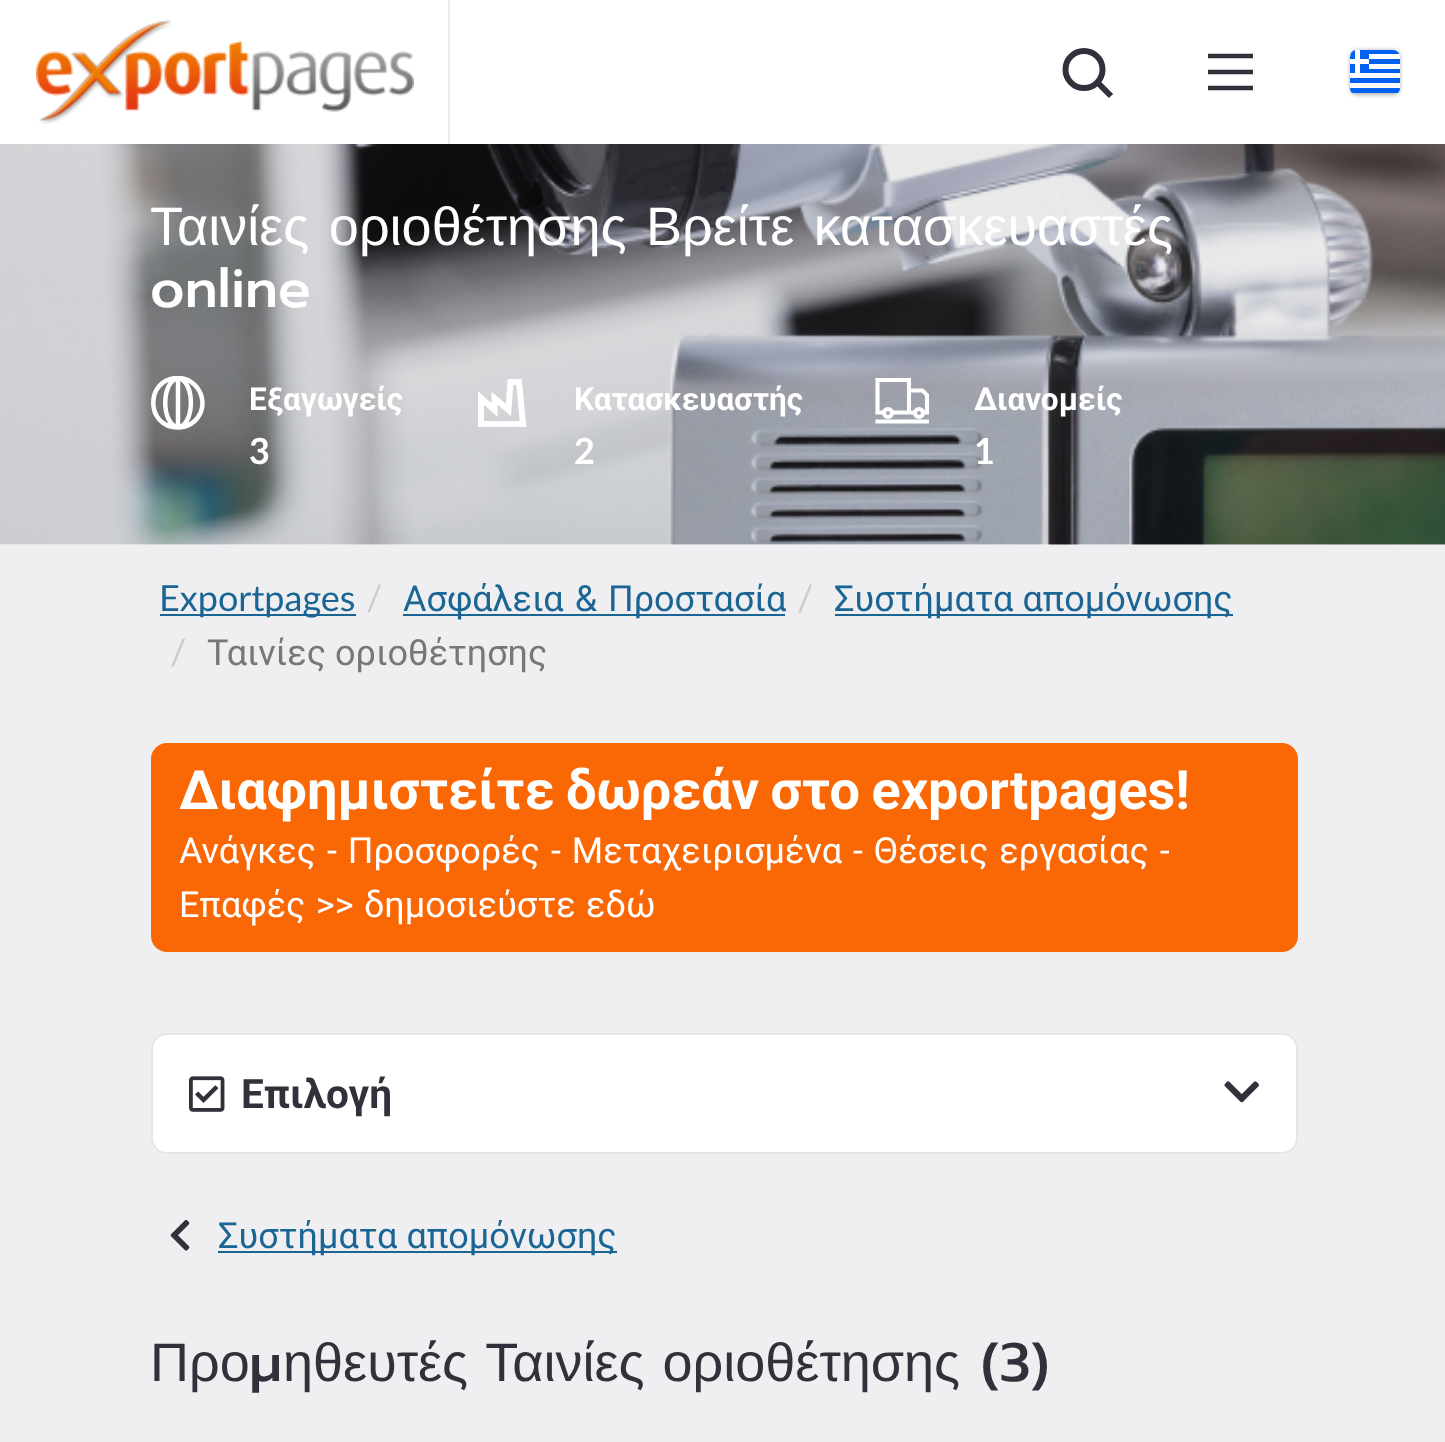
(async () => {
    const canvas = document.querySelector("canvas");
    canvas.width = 1445;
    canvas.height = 1442;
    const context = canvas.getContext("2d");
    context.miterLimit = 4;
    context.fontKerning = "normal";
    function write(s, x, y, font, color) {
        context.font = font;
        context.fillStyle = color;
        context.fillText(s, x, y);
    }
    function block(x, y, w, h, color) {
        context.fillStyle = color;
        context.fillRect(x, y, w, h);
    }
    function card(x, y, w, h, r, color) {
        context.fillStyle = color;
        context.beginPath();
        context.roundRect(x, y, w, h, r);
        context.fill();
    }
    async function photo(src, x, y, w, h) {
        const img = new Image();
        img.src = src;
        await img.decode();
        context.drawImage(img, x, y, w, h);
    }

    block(0, 0, 1445, 1442, "rgb(255, 255, 255)");
    await photo("media/1.png", 36, 19, 378, 105);
    block(448, 0, 2, 144, "rgb(235, 235, 239)");
    context.beginPath();
    context.arc(1084, 69.5, 18.5, 0, Math.PI * 2);
    context.strokeStyle = "rgb(49, 49, 59)";
    context.lineWidth = 6;
    context.stroke();
    context.beginPath();
    context.moveTo(1097.5, 82.5);
    context.lineTo(1111, 96);
    context.stroke();
    context.beginPath();
    context.moveTo(1208, 88);
    context.lineTo(1253, 88);
    context.moveTo(1208, 72);
    context.lineTo(1253, 72);
    context.moveTo(1208, 56);
    context.lineTo(1253, 56);
    context.lineWidth = 4.5;
    context.stroke();
    context.fillStyle = "rgba(0, 0, 0, 0.3)";
    context.filter = "blur(2px)";
    context.beginPath();
    context.roundRect(1350, 50, 50, 45, 7);
    context.fill();
    context.filter = "none";
    context.save();
    context.beginPath();
    context.roundRect(1350, 50, 50, 45, 7);
    context.clip();
    block(1350, 50, 50, 4, "rgb(0, 97, 243)");
    block(1350, 54, 50, 5, "rgb(255, 255, 255)");
    context.restore();
    block(1369, 59, 31, 5, "rgb(0, 97, 243)");
    block(1369, 64, 31, 5, "rgb(255, 255, 255)");
    block(1369, 69, 31, 4, "rgb(0, 97, 243)");
    block(1350, 73, 50, 5, "rgb(255, 255, 255)");
    block(1350, 78, 50, 5, "rgb(0, 97, 243)");
    block(1350, 83, 50, 5, "rgb(255, 255, 255)");
    context.save();
    context.beginPath();
    context.roundRect(1350, 50, 50, 45, 7);
    context.clip();
    block(1350, 88, 50, 5, "rgb(0, 97, 243)");
    context.restore();
    context.fillStyle = "rgb(0, 97, 243)";
    context.beginPath();
    context.roundRect(1350, 50, 19, 23, [7, 0, 0, 0]);
    context.fill();
    block(1355, 50, 5, 23, "rgb(255, 255, 255)");
    block(1350, 59, 19, 5, "rgb(255, 255, 255)");
    await photo("media/2.png", 0, 144, 1445, 401);
    context.wordSpacing = "4.5px";
    write("Ταινίες οριοθέτησης Βρείτε κατασκευαστές", 150, 245, "54px Liberation Sans", "rgb(255, 255, 255)");
    context.wordSpacing = "0px";
    write("online", 150, 307, "500 54px Prompt", "rgb(255, 255, 255)");
    context.save();
    context.beginPath();
    context.rect(151, 376, 54, 54);
    context.clip();
    context.beginPath();
    context.moveTo(178, 427.5);
    context.bezierCurveTo(182.5, 427.5, 187.5, 426, 191.5, 423.5);
    context.bezierCurveTo(212, 409.5, 201.5, 378, 178, 378);
    context.moveTo(178, 427.5);
    context.bezierCurveTo(145, 427.5, 145, 378, 178, 378);
    context.moveTo(178, 427.5);
    context.lineTo(178, 378);
    context.moveTo(178, 427.5);
    context.bezierCurveTo(161, 424, 161, 381.5, 178, 378);
    context.moveTo(178.5, 378);
    context.bezierCurveTo(195, 381.5, 195, 424, 178.5, 427.5);
    context.strokeStyle = "rgb(255, 255, 255)";
    context.stroke();
    context.restore();
    write("Εξαγωγείς", 249, 410, "bold 31.5px Roboto", "rgb(255, 255, 255)");
    write("3", 249, 464, "bold 36px Lato", "rgb(255, 255, 255)");
    context.beginPath();
    context.moveTo(523, 424);
    context.lineTo(519, 382);
    context.lineTo(510.5, 382);
    context.lineTo(508.5, 410);
    context.lineTo(494.5, 398);
    context.lineTo(494.5, 410);
    context.lineTo(481, 398);
    context.lineTo(481, 424);
    context.closePath();
    context.strokeStyle = "rgb(255, 255, 255)";
    context.lineWidth = 6;
    context.stroke();
    write("Κατασκευαστής", 574, 410, "bold 31.5px Roboto", "rgb(255, 255, 255)");
    write("2", 574, 464, "bold 36px Lato", "rgb(255, 255, 255)");
    context.beginPath();
    context.moveTo(909, 412.5);
    context.lineTo(909, 380);
    context.lineTo(877.5, 380);
    context.lineTo(877.5, 412.5);
    context.lineTo(884, 412.5);
    context.moveTo(909, 412.5);
    context.lineTo(891, 412.5);
    context.moveTo(909, 412.5);
    context.lineTo(913.5, 412.5);
    context.moveTo(909, 390.5);
    context.lineTo(922.5, 390.5);
    context.lineTo(927, 395);
    context.lineTo(927, 412.5);
    context.lineTo(922.5, 412.5);
    context.lineWidth = 4.1;
    context.stroke();
    context.beginPath();
    context.arc(888, 413, 4, 0, Math.PI * 2);
    context.stroke();
    context.beginPath();
    context.arc(919, 413, 4, 0, Math.PI * 2);
    context.stroke();
    context.beginPath();
    context.moveTo(875.5, 421.5);
    context.lineTo(929, 421.5);
    context.stroke();
    write("Διανομείς", 974, 410, "bold 31.5px Roboto", "rgb(255, 255, 255)");
    write("1", 974, 464, "bold 36px Lato", "rgb(255, 255, 255)");
    block(0, 545, 1445, 897, "rgb(239, 239, 241)");
    block(160, 614, 196, 2, "rgb(27, 101, 149)");
    write("Exportpages", 159, 611, "36px Lato", "rgb(27, 101, 149)");
    write("/", 366, 611, "36px Lato", "rgb(204, 204, 204)");
    block(403, 614, 382, 2, "rgb(27, 101, 149)");
    context.wordSpacing = "2px";
    write("Ασφάλεια & Προστασία", 403, 611, "36px Roboto", "rgb(27, 101, 149)");
    context.wordSpacing = "0px";
    write("/", 797, 611, "36px Lato", "rgb(204, 204, 204)");
    block(835, 614, 398, 2, "rgb(27, 101, 149)");
    write("Συστήματα απομόνωσης", 834, 611, "36px Roboto", "rgb(27, 101, 149)");
    write("/", 170, 665, "36px Lato", "rgb(204, 204, 204)");
    write("Ταινίες οριοθέτησης", 207, 665, "36px Roboto", "rgb(119, 119, 119)");
    context.fillStyle = "rgb(250, 103, 5)";
    context.beginPath();
    context.roundRect(152, 744, 1145, 207, 15);
    context.fill();
    context.strokeStyle = "rgb(250, 103, 5)";
    context.lineWidth = 2;
    context.stroke();
    context.wordSpacing = "-2px";
    write("Διαφημιστείτε δωρεάν στο exportpages!", 179, 809, "bold 54px Roboto", "rgb(255, 255, 255)");
    context.wordSpacing = "2px";
    write("Ανάγκες - Προσφορές - Μεταχειρισμένα - Θέσεις εργασίας -", 179, 863, "36px Roboto", "rgb(255, 255, 255)");
    context.wordSpacing = "1.5px";
    write("Επαφές >> δημοσιεύστε εδώ", 179, 917, "36px Roboto", "rgb(255, 255, 255)");
    card(151, 1033, 1147, 121, 16, "rgb(255, 255, 255)");
    context.beginPath();
    context.roundRect(152, 1034, 1145, 119, 15);
    context.strokeStyle = "rgba(49, 49, 59, 0.12)";
    context.stroke();
    await photo("media/3.png", 189, 1076, 36, 36);
    context.wordSpacing = "0px";
    write("Επιλογή", 241, 1108, "bold 40.5px Roboto", "rgb(49, 49, 59)");
    await photo("media/4.png", 1224, 1081, 35, 22);
    await photo("media/5.png", 170, 1220, 20, 31);
    block(218, 1251, 399, 2, "rgb(27, 101, 149)");
    write("Συστήματα απομόνωσης", 218, 1248, "36px Roboto", "rgb(27, 101, 149)");
    write("Προ", 150, 1381, "54px Liberation Sans", "rgb(49, 49, 59)");
    write("μ", 249, 1381, "500 54px Prompt", "rgb(49, 49, 59)");
    context.wordSpacing = "3px";
    write("ηθευτές Ταινίες οριοθέτησης", 283, 1381, "54px Liberation Sans", "rgb(49, 49, 59)");
    context.wordSpacing = "0px";
    write("(3)", 981, 1381, "500 54px Prompt", "rgb(49, 49, 59)");
})();
